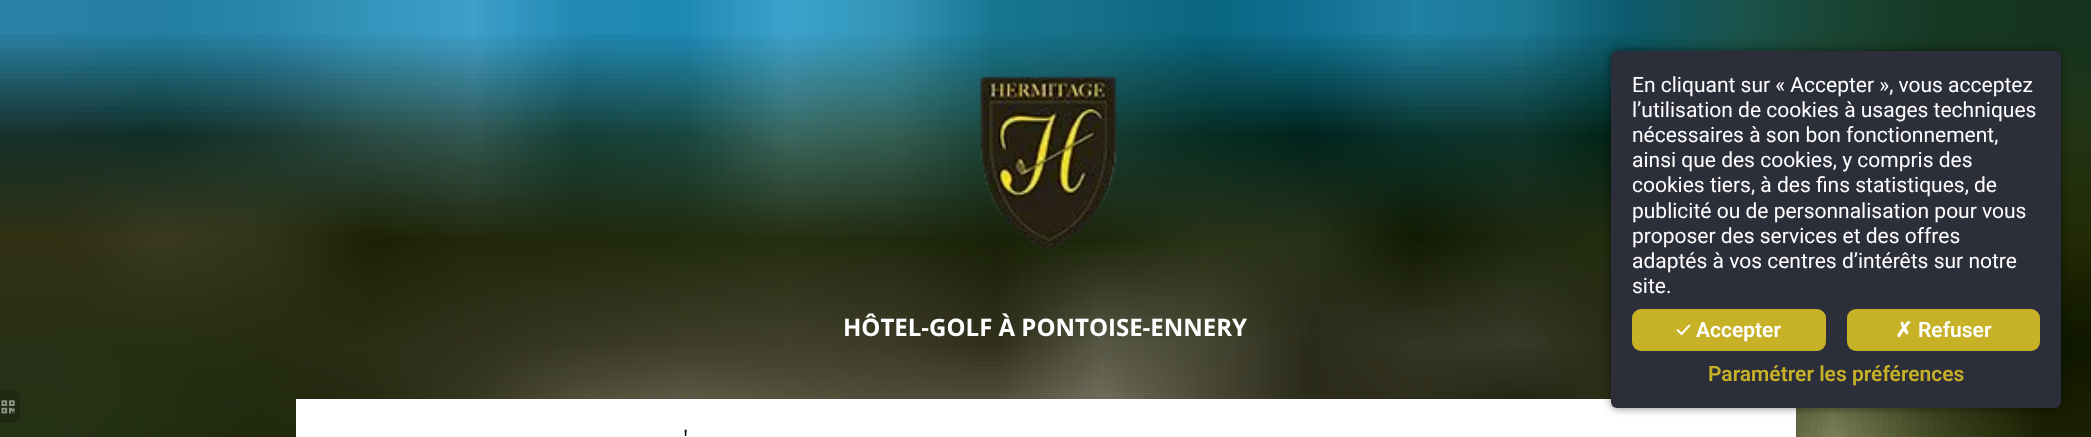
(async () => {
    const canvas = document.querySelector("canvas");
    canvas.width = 2091;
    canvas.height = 437;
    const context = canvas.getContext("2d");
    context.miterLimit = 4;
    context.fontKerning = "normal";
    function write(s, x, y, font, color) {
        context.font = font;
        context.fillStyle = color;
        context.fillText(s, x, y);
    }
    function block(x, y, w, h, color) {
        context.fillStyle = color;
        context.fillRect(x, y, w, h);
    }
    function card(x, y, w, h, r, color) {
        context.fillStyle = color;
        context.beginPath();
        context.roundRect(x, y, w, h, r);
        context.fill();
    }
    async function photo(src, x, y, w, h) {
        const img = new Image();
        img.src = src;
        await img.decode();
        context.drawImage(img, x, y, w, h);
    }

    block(0, 0, 2091, 437, "rgb(255, 255, 255)");
    await photo("media/2.png", 0, 0, 2091, 437);
    context.fillStyle = "rgb(31, 40, 17)";
    context.beginPath();
    context.roundRect(0, 390, 20, 33, [0, 8, 8, 0]);
    context.fill();
    await photo("media/1.png", 1, 400, 14, 14);
    await photo("media/3.png", 980, 76, 137, 174);
    write("HÔTEL-GOLF À PONTOISE-ENNERY", 843, 336, "bold 24px Open Sans", "rgb(255, 255, 255)");
    block(296, 399, 1500, 38, "rgb(255, 255, 255)");
    write("'", 683, 447, "24px Open Sans", "rgb(0, 0, 0)");
    context.fillStyle = "rgba(0, 0, 0, 0.5)";
    context.filter = "blur(4px)";
    context.beginPath();
    context.roundRect(1611, 51, 450, 357, 6);
    context.fill();
    context.filter = "none";
    card(1611, 51, 450, 357, 6, "rgb(44, 46, 58)");
    write("En cliquant sur « Accepter », vous acceptez", 1632, 92, "21px Roboto", "rgb(255, 255, 255)");
    write("l’utilisation de cookies à usages techniques", 1632, 117, "21px Roboto", "rgb(255, 255, 255)");
    write("nécessaires à son bon fonctionnement,", 1632, 142, "21px Roboto", "rgb(255, 255, 255)");
    write("ainsi que des cookies, y compris des", 1632, 167, "21px Roboto", "rgb(255, 255, 255)");
    write("cookies tiers, à des fins statistiques, de", 1632, 192, "21px Roboto", "rgb(255, 255, 255)");
    write("publicité ou de personnalisation pour vous", 1632, 218, "21px Roboto", "rgb(255, 255, 255)");
    write("proposer des services et des offres", 1632, 243, "21px Roboto", "rgb(255, 255, 255)");
    write("adaptés à vos centres d’intérêts sur notre", 1632, 268, "21px Roboto", "rgb(255, 255, 255)");
    write("site.", 1632, 293, "21px Roboto", "rgb(255, 255, 255)");
    card(1632, 309, 194, 42, 9, "rgb(199, 177, 38)");
    write("✓", 1676, 337, "600 21px Ubuntu", "rgb(255, 255, 255)");
    write("Accepter", 1696, 337, "600 21px Roboto", "rgb(255, 255, 255)");
    card(1847, 309, 193, 42, 9, "rgb(199, 177, 38)");
    write("✗", 1895, 337, "bold 21px DejaVu Sans", "rgb(255, 255, 255)");
    write("Refuser", 1918, 337, "600 21px Roboto", "rgb(255, 255, 255)");
    write("Paramétrer les préférences", 1708, 381, "600 21px Roboto", "rgb(199, 177, 38)");
})();
